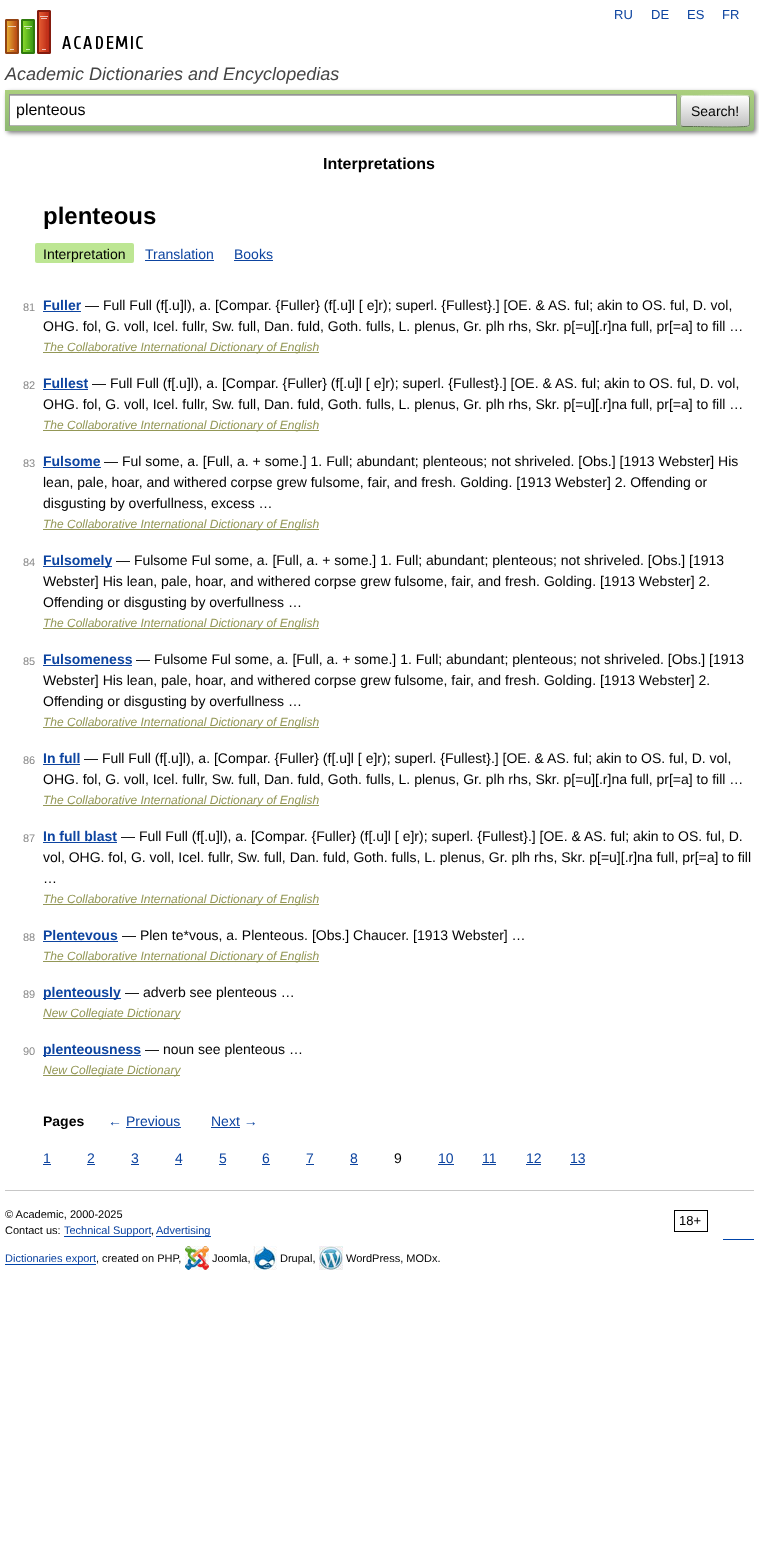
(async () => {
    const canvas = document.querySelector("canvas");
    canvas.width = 759;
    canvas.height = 1556;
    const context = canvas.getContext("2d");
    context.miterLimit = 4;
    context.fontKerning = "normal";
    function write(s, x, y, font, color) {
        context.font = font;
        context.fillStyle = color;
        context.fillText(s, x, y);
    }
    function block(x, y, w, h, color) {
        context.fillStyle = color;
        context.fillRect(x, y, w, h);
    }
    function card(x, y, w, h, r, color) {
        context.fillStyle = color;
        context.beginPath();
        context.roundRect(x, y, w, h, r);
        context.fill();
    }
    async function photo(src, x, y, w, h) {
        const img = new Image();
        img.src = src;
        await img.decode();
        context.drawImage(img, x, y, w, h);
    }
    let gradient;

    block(0, 0, 759, 1556, "rgb(255, 255, 255)");
    await photo("media/1.png", 5, 10, 138, 44);
    write("RU", 614, 19, "13px Liberation Sans", "rgb(13, 68, 160)");
    write("DE", 651, 19, "13px Liberation Sans", "rgb(13, 68, 160)");
    write("ES", 687, 19, "13px Liberation Sans", "rgb(13, 68, 160)");
    write("FR", 722, 19, "13px Liberation Sans", "rgb(13, 68, 160)");
    write("Academic Dictionaries and Encyclopedias", 5, 80, "italic 18px Liberation Sans", "rgb(69, 69, 69)");
    context.fillStyle = "rgba(0, 0, 0, 0.5)";
    context.filter = "blur(2px)";
    context.beginPath();
    context.roundRect(7, 92, 749, 41, 3);
    context.fill();
    context.filter = "none";
    gradient = context.createLinearGradient(380, 90, 380, 131);
    gradient.addColorStop(0, "rgb(171, 207, 126)");
    gradient.addColorStop(1, "rgb(142, 184, 116)");
    context.fillStyle = gradient;
    context.beginPath();
    context.roundRect(5, 90, 749, 41, [0, 3, 3, 0]);
    context.fill();
    block(10, 96, 666, 29, "rgb(255, 255, 255)");
    block(10, 95, 666, 1, "rgb(179, 179, 179)");
    block(9, 94, 668, 1, "rgb(148, 148, 148)");
    block(676, 94, 1, 32, "rgb(148, 148, 148)");
    block(9, 125, 668, 1, "rgb(180, 180, 180)");
    block(9, 94, 1, 32, "rgb(148, 148, 148)");
    write("plenteous", 16, 115, "16px Liberation Sans", "rgb(0, 0, 0)");
    context.save();
    context.beginPath();
    context.roundRect(680, 95, 70, 32, 3);
    context.clip();
    gradient = context.createLinearGradient(715, 66, 715, 96);
    gradient.addColorStop(0, "rgb(255, 255, 255)");
    gradient.addColorStop(1, "rgb(193, 193, 193)");
    context.fillStyle = gradient;
    context.fillRect(680, 95, 70, 1);
    gradient = context.createLinearGradient(715, 96, 715, 126);
    gradient.addColorStop(0, "rgb(255, 255, 255)");
    gradient.addColorStop(1, "rgb(193, 193, 193)");
    context.fillStyle = gradient;
    context.fillRect(680, 96, 70, 30);
    gradient = context.createLinearGradient(715, 126, 715, 156);
    gradient.addColorStop(0, "rgb(255, 255, 255)");
    gradient.addColorStop(1, "rgb(193, 193, 193)");
    context.fillStyle = gradient;
    context.fillRect(680, 126, 70, 1);
    context.restore();
    context.beginPath();
    context.moveTo(681, 96);
    context.lineTo(683, 95.5);
    context.lineTo(693.5, 95.5);
    context.bezierCurveTo(700, 95.5, 746.5, 94.5, 748.5, 96);
    context.lineTo(749, 96);
    context.strokeStyle = "rgb(209, 228, 188)";
    context.stroke();
    context.beginPath();
    context.moveTo(749, 96);
    context.bezierCurveTo(749, 96.5, 749.5, 97.5, 749.5, 98);
    context.lineTo(749.5, 124);
    context.bezierCurveTo(749.5, 124.5, 749, 125.5, 749, 126);
    context.strokeStyle = "rgb(122, 142, 105)";
    context.stroke();
    context.beginPath();
    context.moveTo(749, 126);
    context.lineTo(748.5, 126);
    context.bezierCurveTo(746.5, 127.5, 700, 126.5, 693.5, 126.5);
    context.lineTo(683, 126.5);
    context.lineTo(681, 126);
    context.strokeStyle = "rgb(93, 114, 80)";
    context.stroke();
    context.beginPath();
    context.moveTo(681, 126);
    context.bezierCurveTo(681, 125.5, 680.5, 124.5, 680.5, 124);
    context.lineTo(680.5, 98);
    context.bezierCurveTo(680.5, 97.5, 681, 96.5, 681, 96);
    context.strokeStyle = "rgb(154, 174, 137)";
    context.stroke();
    write("Search!", 691, 116, "14px Liberation Sans", "rgb(0, 0, 0)");
    write("Interpretations", 323, 169, "bold 16px Liberation Sans", "rgb(0, 0, 0)");
    write("plenteous", 43, 224, "bold 24px Liberation Sans", "rgb(0, 0, 0)");
    card(35, 243, 99, 20, 2, "rgb(189, 230, 147)");
    write("Interpretation", 43, 259, "14px Liberation Sans", "rgb(0, 0, 0)");
    write("Translation", 145, 259, "14px Liberation Sans", "rgb(13, 68, 160)");
    block(145, 260, 69, 1, "rgb(13, 68, 160)");
    write("Books", 234, 259, "14px Liberation Sans", "rgb(13, 68, 160)");
    block(234, 260, 39, 1, "rgb(13, 68, 160)");
    write("81", 23, 311, "11px Liberation Sans", "rgb(137, 137, 137)");
    write("Fuller", 43, 310, "bold 14px Liberation Sans", "rgb(13, 68, 160)");
    block(43, 311, 38, 1, "rgb(13, 68, 160)");
    write("— Full Full (f[.u]l), a. [Compar. {Fuller} (f[.u]l [ e]r); superl. {Fullest}.] [OE. & AS. ful; akin to OS. ful, D. vol,", 85, 310, "14px Liberation Sans", "rgb(0, 0, 0)");
    write("OHG. fol, G. voll, Icel. fullr, Sw. full, Dan. fuld, Goth. fulls, L. plenus, Gr. plh rhs, Skr. p[=u][.r]na full, pr[=a] to fill …", 43, 331, "14px Liberation Sans", "rgb(0, 0, 0)");
    block(43, 352, 276, 1, "rgb(147, 151, 86)");
    write("The Collaborative International Dictionary of English", 43, 351, "italic 12px Liberation Sans", "rgb(147, 151, 86)");
    write("82", 23, 389, "11px Liberation Sans", "rgb(137, 137, 137)");
    write("Fullest", 43, 388, "bold 14px Liberation Sans", "rgb(13, 68, 160)");
    block(43, 389, 45, 1, "rgb(13, 68, 160)");
    write("— Full Full (f[.u]l), a. [Compar. {Fuller} (f[.u]l [ e]r); superl. {Fullest}.] [OE. & AS. ful; akin to OS. ful, D. vol,", 92, 388, "14px Liberation Sans", "rgb(0, 0, 0)");
    write("OHG. fol, G. voll, Icel. fullr, Sw. full, Dan. fuld, Goth. fulls, L. plenus, Gr. plh rhs, Skr. p[=u][.r]na full, pr[=a] to fill …", 43, 409, "14px Liberation Sans", "rgb(0, 0, 0)");
    block(43, 430, 276, 1, "rgb(147, 151, 86)");
    write("The Collaborative International Dictionary of English", 43, 429, "italic 12px Liberation Sans", "rgb(147, 151, 86)");
    write("83", 23, 467, "11px Liberation Sans", "rgb(137, 137, 137)");
    write("Fulsome", 43, 466, "bold 14px Liberation Sans", "rgb(13, 68, 160)");
    block(43, 467, 58, 1, "rgb(13, 68, 160)");
    write("— Ful some, a. [Full, a. + some.] 1. Full; abundant; plenteous; not shriveled. [Obs.] [1913 Webster] His", 104, 466, "14px Liberation Sans", "rgb(0, 0, 0)");
    write("lean, pale, hoar, and withered corpse grew fulsome, fair, and fresh. Golding. [1913 Webster] 2. Offending or", 43, 487, "14px Liberation Sans", "rgb(0, 0, 0)");
    write("disgusting by overfullness, excess …", 43, 508, "14px Liberation Sans", "rgb(0, 0, 0)");
    block(43, 529, 276, 1, "rgb(147, 151, 86)");
    write("The Collaborative International Dictionary of English", 43, 528, "italic 12px Liberation Sans", "rgb(147, 151, 86)");
    write("84", 23, 566, "11px Liberation Sans", "rgb(137, 137, 137)");
    block(43, 566, 69, 1, "rgb(13, 68, 160)");
    write("Fulsomely", 43, 565, "bold 14px Liberation Sans", "rgb(13, 68, 160)");
    write("— Fulsome Ful some, a. [Full, a. + some.] 1. Full; abundant; plenteous; not shriveled. [Obs.] [1913", 116, 565, "14px Liberation Sans", "rgb(0, 0, 0)");
    write("Webster] His lean, pale, hoar, and withered corpse grew fulsome, fair, and fresh. Golding. [1913 Webster] 2.", 43, 586, "14px Liberation Sans", "rgb(0, 0, 0)");
    write("Offending or disgusting by overfullness …", 43, 607, "14px Liberation Sans", "rgb(0, 0, 0)");
    block(43, 628, 276, 1, "rgb(147, 151, 86)");
    write("The Collaborative International Dictionary of English", 43, 627, "italic 12px Liberation Sans", "rgb(147, 151, 86)");
    write("85", 23, 665, "11px Liberation Sans", "rgb(137, 137, 137)");
    write("Fulsomeness", 43, 664, "bold 14px Liberation Sans", "rgb(13, 68, 160)");
    block(43, 665, 89, 1, "rgb(13, 68, 160)");
    write("— Fulsome Ful some, a. [Full, a. + some.] 1. Full; abundant; plenteous; not shriveled. [Obs.] [1913", 136, 664, "14px Liberation Sans", "rgb(0, 0, 0)");
    write("Webster] His lean, pale, hoar, and withered corpse grew fulsome, fair, and fresh. Golding. [1913 Webster] 2.", 43, 685, "14px Liberation Sans", "rgb(0, 0, 0)");
    write("Offending or disgusting by overfullness …", 43, 706, "14px Liberation Sans", "rgb(0, 0, 0)");
    block(43, 727, 276, 1, "rgb(147, 151, 86)");
    write("The Collaborative International Dictionary of English", 43, 726, "italic 12px Liberation Sans", "rgb(147, 151, 86)");
    write("86", 23, 764, "11px Liberation Sans", "rgb(137, 137, 137)");
    write("In full", 43, 763, "bold 14px Liberation Sans", "rgb(13, 68, 160)");
    block(43, 764, 37, 1, "rgb(13, 68, 160)");
    write("— Full Full (f[.u]l), a. [Compar. {Fuller} (f[.u]l [ e]r); superl. {Fullest}.] [OE. & AS. ful; akin to OS. ful, D. vol,", 84, 763, "14px Liberation Sans", "rgb(0, 0, 0)");
    write("OHG. fol, G. voll, Icel. fullr, Sw. full, Dan. fuld, Goth. fulls, L. plenus, Gr. plh rhs, Skr. p[=u][.r]na full, pr[=a] to fill …", 43, 784, "14px Liberation Sans", "rgb(0, 0, 0)");
    block(43, 805, 276, 1, "rgb(147, 151, 86)");
    write("The Collaborative International Dictionary of English", 43, 804, "italic 12px Liberation Sans", "rgb(147, 151, 86)");
    write("87", 23, 842, "11px Liberation Sans", "rgb(137, 137, 137)");
    write("In full blast", 43, 841, "bold 14px Liberation Sans", "rgb(13, 68, 160)");
    block(43, 842, 74, 1, "rgb(13, 68, 160)");
    write("— Full Full (f[.u]l), a. [Compar. {Fuller} (f[.u]l [ e]r); superl. {Fullest}.] [OE. & AS. ful; akin to OS. ful, D.", 121, 841, "14px Liberation Sans", "rgb(0, 0, 0)");
    write("vol, OHG. fol, G. voll, Icel. fullr, Sw. full, Dan. fuld, Goth. fulls, L. plenus, Gr. plh rhs, Skr. p[=u][.r]na full, pr[=a] to fill", 43, 862, "14px Liberation Sans", "rgb(0, 0, 0)");
    write("…", 43, 883, "14px Liberation Sans", "rgb(0, 0, 0)");
    block(43, 904, 276, 1, "rgb(147, 151, 86)");
    write("The Collaborative International Dictionary of English", 43, 903, "italic 12px Liberation Sans", "rgb(147, 151, 86)");
    write("88", 23, 941, "11px Liberation Sans", "rgb(137, 137, 137)");
    write("Plentevous", 43, 940, "bold 14px Liberation Sans", "rgb(13, 68, 160)");
    block(43, 941, 75, 1, "rgb(13, 68, 160)");
    write("— Plen te*vous, a. Plenteous. [Obs.] Chaucer. [1913 Webster] …", 122, 940, "14px Liberation Sans", "rgb(0, 0, 0)");
    block(43, 961, 276, 1, "rgb(147, 151, 86)");
    write("The Collaborative International Dictionary of English", 43, 960, "italic 12px Liberation Sans", "rgb(147, 151, 86)");
    write("89", 23, 998, "11px Liberation Sans", "rgb(137, 137, 137)");
    block(43, 998, 78, 1, "rgb(13, 68, 160)");
    write("plenteously", 43, 997, "bold 14px Liberation Sans", "rgb(13, 68, 160)");
    write("— adverb see plenteous …", 125, 997, "14px Liberation Sans", "rgb(0, 0, 0)");
    block(43, 1018, 137, 1, "rgb(147, 151, 86)");
    write("New Collegiate Dictionary", 43, 1017, "italic 12px Liberation Sans", "rgb(147, 151, 86)");
    write("90", 23, 1055, "11px Liberation Sans", "rgb(137, 137, 137)");
    block(43, 1055, 98, 1, "rgb(13, 68, 160)");
    write("plenteousness", 43, 1054, "bold 14px Liberation Sans", "rgb(13, 68, 160)");
    write("— noun see plenteous …", 145, 1054, "14px Liberation Sans", "rgb(0, 0, 0)");
    block(43, 1075, 137, 1, "rgb(147, 151, 86)");
    write("New Collegiate Dictionary", 43, 1074, "italic 12px Liberation Sans", "rgb(147, 151, 86)");
    write("Pages", 43, 1126, "bold 14px Liberation Sans", "rgb(0, 0, 0)");
    write("← Previous", 108, 1126, "14px Liberation Sans", "rgb(13, 68, 160)");
    block(126, 1127, 55, 1, "rgb(13, 68, 160)");
    write("Next →", 211, 1126, "14px Liberation Sans", "rgb(13, 68, 160)");
    block(211, 1127, 29, 1, "rgb(13, 68, 160)");
    write("1", 43, 1163, "14px Liberation Sans", "rgb(13, 68, 160)");
    block(43, 1164, 8, 1, "rgb(13, 68, 160)");
    write("2", 87, 1163, "14px Liberation Sans", "rgb(13, 68, 160)");
    block(87, 1164, 8, 1, "rgb(13, 68, 160)");
    write("3", 131, 1163, "14px Liberation Sans", "rgb(13, 68, 160)");
    block(131, 1164, 8, 1, "rgb(13, 68, 160)");
    write("4", 175, 1163, "14px Liberation Sans", "rgb(13, 68, 160)");
    block(175, 1164, 7, 1, "rgb(13, 68, 160)");
    write("5", 219, 1163, "14px Liberation Sans", "rgb(13, 68, 160)");
    block(219, 1164, 7, 1, "rgb(13, 68, 160)");
    write("6", 262, 1163, "14px Liberation Sans", "rgb(13, 68, 160)");
    block(262, 1164, 8, 1, "rgb(13, 68, 160)");
    write("7", 306, 1163, "14px Liberation Sans", "rgb(13, 68, 160)");
    block(306, 1164, 8, 1, "rgb(13, 68, 160)");
    write("8", 350, 1163, "14px Liberation Sans", "rgb(13, 68, 160)");
    block(350, 1164, 8, 1, "rgb(13, 68, 160)");
    write("9", 394, 1163, "14px Liberation Sans", "rgb(0, 0, 0)");
    write("10", 438, 1163, "14px Liberation Sans", "rgb(13, 68, 160)");
    block(438, 1164, 16, 1, "rgb(13, 68, 160)");
    write("11", 482, 1163, "14px Liberation Sans", "rgb(13, 68, 160)");
    block(482, 1164, 14, 1, "rgb(13, 68, 160)");
    write("12", 526, 1163, "14px Liberation Sans", "rgb(13, 68, 160)");
    block(526, 1164, 15, 1, "rgb(13, 68, 160)");
    write("13", 570, 1163, "14px Liberation Sans", "rgb(13, 68, 160)");
    block(570, 1164, 15, 1, "rgb(13, 68, 160)");
    block(5, 1190, 749, 1, "rgb(199, 199, 199)");
    write("© Academic, 2000-2025", 5, 1218, "11px Liberation Sans", "rgb(0, 0, 0)");
    context.strokeStyle = "rgb(0, 0, 0)";
    context.strokeRect(674.5, 1210.5, 33, 21);
    write("18+", 679, 1225, "13px Liberation Sans", "rgb(0, 0, 0)");
    write("Contact us:", 5, 1234, "11px Liberation Sans", "rgb(0, 0, 0)");
    block(64, 1236, 87, 1, "rgb(0, 68, 170)");
    write("Technical Support", 64, 1234, "11px Liberation Sans", "rgb(13, 68, 160)");
    write(",", 151, 1234, "11px Liberation Sans", "rgb(0, 0, 0)");
    block(156, 1236, 55, 1, "rgb(0, 68, 170)");
    write("Advertising", 156, 1234, "11px Liberation Sans", "rgb(13, 68, 160)");
    block(723, 1239, 31, 1, "rgb(0, 68, 170)");
    block(5, 1264, 91, 1, "rgb(0, 68, 170)");
    write("Dictionaries export", 5, 1262, "11px Liberation Sans", "rgb(13, 68, 160)");
    write(", created on PHP,", 96, 1262, "11px Liberation Sans", "rgb(0, 0, 0)");
    await photo("media/2.png", 185, 1246, 24, 24);
    write("Joomla,", 212, 1262, "11px Liberation Sans", "rgb(0, 0, 0)");
    await photo("media/3.png", 253, 1246, 24, 24);
    write("Drupal,", 280, 1262, "11px Liberation Sans", "rgb(0, 0, 0)");
    await photo("media/4.png", 319, 1246, 24, 24);
    write("WordPress, MODx.", 346, 1262, "11px Liberation Sans", "rgb(0, 0, 0)");
})();
